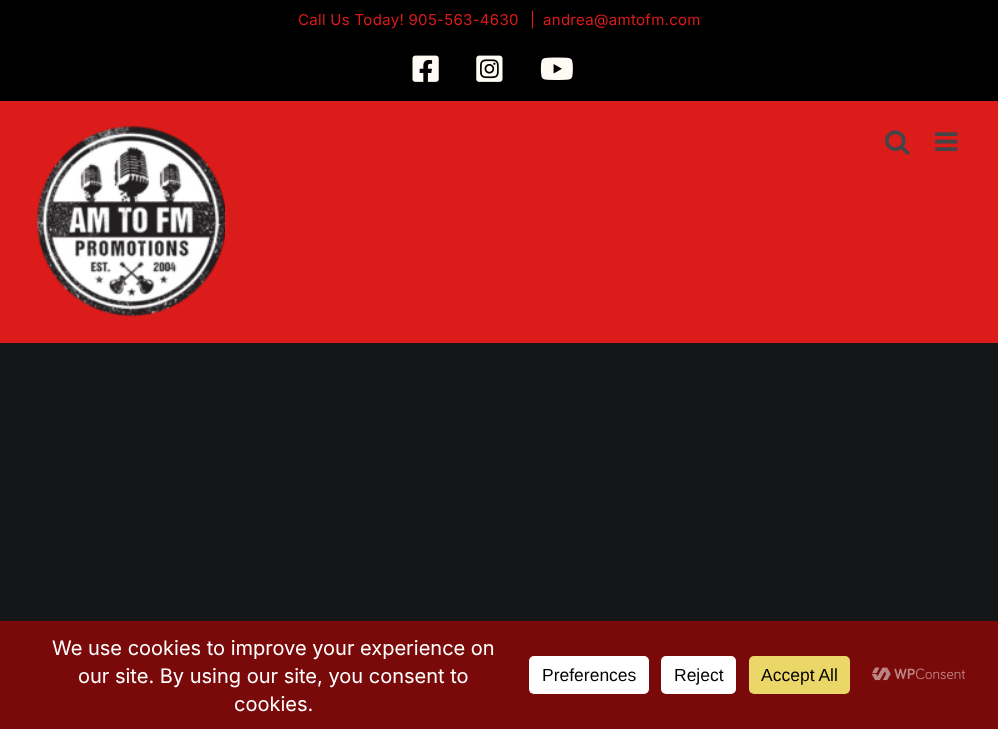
(async () => {
    const canvas = document.querySelector("canvas");
    canvas.width = 998;
    canvas.height = 729;
    const context = canvas.getContext("2d");
    context.miterLimit = 4;
    context.fontKerning = "normal";
    function write(s, x, y, font, color) {
        context.font = font;
        context.fillStyle = color;
        context.fillText(s, x, y);
    }
    function block(x, y, w, h, color) {
        context.fillStyle = color;
        context.fillRect(x, y, w, h);
    }
    function card(x, y, w, h, r, color) {
        context.fillStyle = color;
        context.beginPath();
        context.roundRect(x, y, w, h, r);
        context.fill();
    }
    async function photo(src, x, y, w, h) {
        const img = new Image();
        img.src = src;
        await img.decode();
        context.drawImage(img, x, y, w, h);
    }

    block(0, 0, 998, 729, "rgb(20, 22, 23)");
    block(0, 0, 998, 101, "rgb(0, 0, 0)");
    context.letterSpacing = "0.3px";
    write("Call Us Today! 905-563-4630", 298, 25, "15px Inter", "rgb(220, 27, 27)");
    write("|", 530, 25, "15px Inter", "rgb(220, 27, 27)");
    write("andrea@amtofm.com", 543, 25, "15px Inter", "rgb(220, 27, 27)");
    await photo("media/1.png", 412, 55, 27, 27);
    await photo("media/2.png", 476, 55, 27, 27);
    await photo("media/3.png", 540, 57, 33, 23);
    block(0, 101, 998, 242, "rgb(220, 27, 27)");
    await photo("media/4.png", 37, 126, 188, 191);
    await photo("media/5.png", 885, 130, 25, 25);
    await photo("media/6.png", 935, 132, 23, 19);
    block(0, 621, 998, 108, "rgb(122, 9, 9)");
    context.letterSpacing = "0px";
    write("We use cookies to improve your experience on", 52, 655, "20px Inter", "rgb(255, 255, 255)");
    write("our site. By using our site, you consent to", 78, 683, "20px Inter", "rgb(255, 255, 255)");
    write("cookies.", 234, 711, "20px Inter", "rgb(255, 255, 255)");
    card(529, 656, 120, 38, 5, "rgb(255, 255, 255)");
    write("Preferences", 542, 681, "17.5px Liberation Sans", "rgb(0, 0, 0)");
    card(661, 656, 75, 38, 5, "rgb(255, 255, 255)");
    write("Reject", 674, 681, "17.5px Liberation Sans", "rgb(0, 0, 0)");
    card(749, 656, 101, 38, 5, "rgb(235, 214, 104)");
    write("Accept All", 761, 681, "17.5px Liberation Sans", "rgb(0, 0, 0)");
    await photo("media/7.png", 872, 667, 93, 14);
})();
